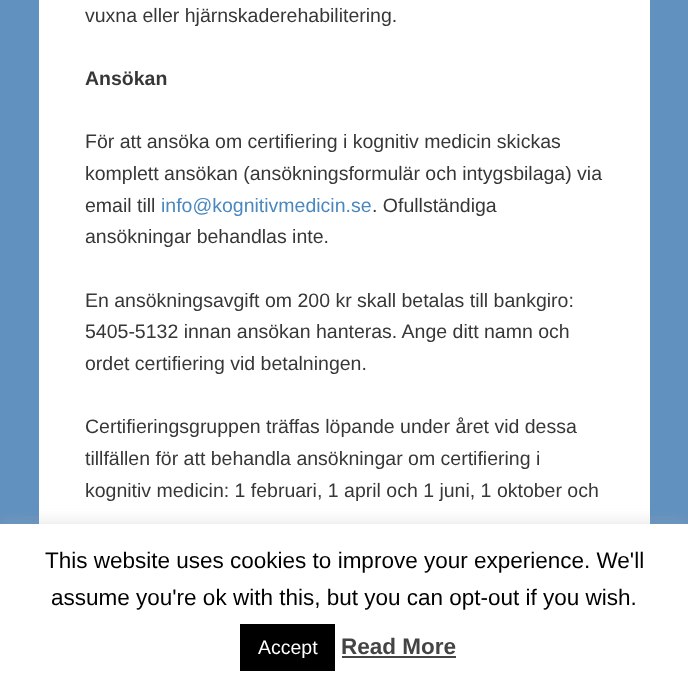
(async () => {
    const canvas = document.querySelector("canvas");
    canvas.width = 688;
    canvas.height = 688;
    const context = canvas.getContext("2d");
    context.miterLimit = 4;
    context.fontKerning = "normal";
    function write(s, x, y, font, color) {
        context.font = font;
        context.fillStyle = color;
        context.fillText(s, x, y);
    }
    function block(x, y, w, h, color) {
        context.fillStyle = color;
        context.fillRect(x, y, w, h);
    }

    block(0, 0, 688, 688, "rgb(97, 145, 191)");
    block(39, 0, 611, 524, "rgb(255, 255, 255)");
    write("vuxna eller hjärnskaderehabilitering.", 85, 22, "19.5px Liberation Sans", "rgb(55, 55, 55)");
    write("Ansökan", 85, 85, "bold 19.5px Liberation Sans", "rgb(55, 55, 55)");
    write("För att ansöka om certifiering i kognitiv medicin skickas", 85, 148, "19.5px Liberation Sans", "rgb(55, 55, 55)");
    write("komplett ansökan (ansökningsformulär och intygsbilaga) via", 85, 180, "19.5px Liberation Sans", "rgb(55, 55, 55)");
    write("email till", 85, 212, "19.5px Liberation Sans", "rgb(55, 55, 55)");
    write("info@kognitivmedicin.se", 161, 212, "19.5px Liberation Sans", "rgb(74, 136, 191)");
    write(". Ofullständiga", 372, 212, "19.5px Liberation Sans", "rgb(55, 55, 55)");
    write("ansökningar behandlas inte.", 85, 243, "19.5px Liberation Sans", "rgb(55, 55, 55)");
    write("En ansökningsavgift om 200 kr skall betalas till bankgiro:", 85, 307, "19.5px Liberation Sans", "rgb(55, 55, 55)");
    write("5405-5132 innan ansökan hanteras. Ange ditt namn och", 85, 338, "19.5px Liberation Sans", "rgb(55, 55, 55)");
    write("ordet certifiering vid betalningen.", 85, 370, "19.5px Liberation Sans", "rgb(55, 55, 55)");
    write("Certifieringsgruppen träffas löpande under året vid dessa", 85, 433, "19.5px Liberation Sans", "rgb(55, 55, 55)");
    write("tillfällen för att behandla ansökningar om certifiering i", 85, 465, "19.5px Liberation Sans", "rgb(55, 55, 55)");
    write("kognitiv medicin: 1 februari, 1 april och 1 juni, 1 oktober och", 85, 497, "19.5px Liberation Sans", "rgb(55, 55, 55)");
    context.fillStyle = "rgba(172, 171, 171, 0.3)";
    context.filter = "blur(7.5px)";
    context.beginPath();
    context.rect(0, 522, 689, 165);
    context.fill();
    context.filter = "none";
    block(0, 524, 688, 164, "rgb(255, 255, 255)");
    write("This website uses cookies to improve your experience. We'll", 45, 568, "22.5px Liberation Sans", "rgb(0, 0, 0)");
    write("assume you're ok with this, but you can opt-out if you wish.", 51, 605, "22.5px Liberation Sans", "rgb(0, 0, 0)");
    block(240, 624, 95, 47, "rgb(0, 0, 0)");
    write("Accept", 258, 654, "19.5px Liberation Sans", "rgb(255, 255, 255)");
    write("Read More", 341, 654, "bold 22.5px Liberation Sans", "rgb(68, 68, 68)");
    block(342, 656, 114, 2, "rgb(68, 68, 68)");
})();
